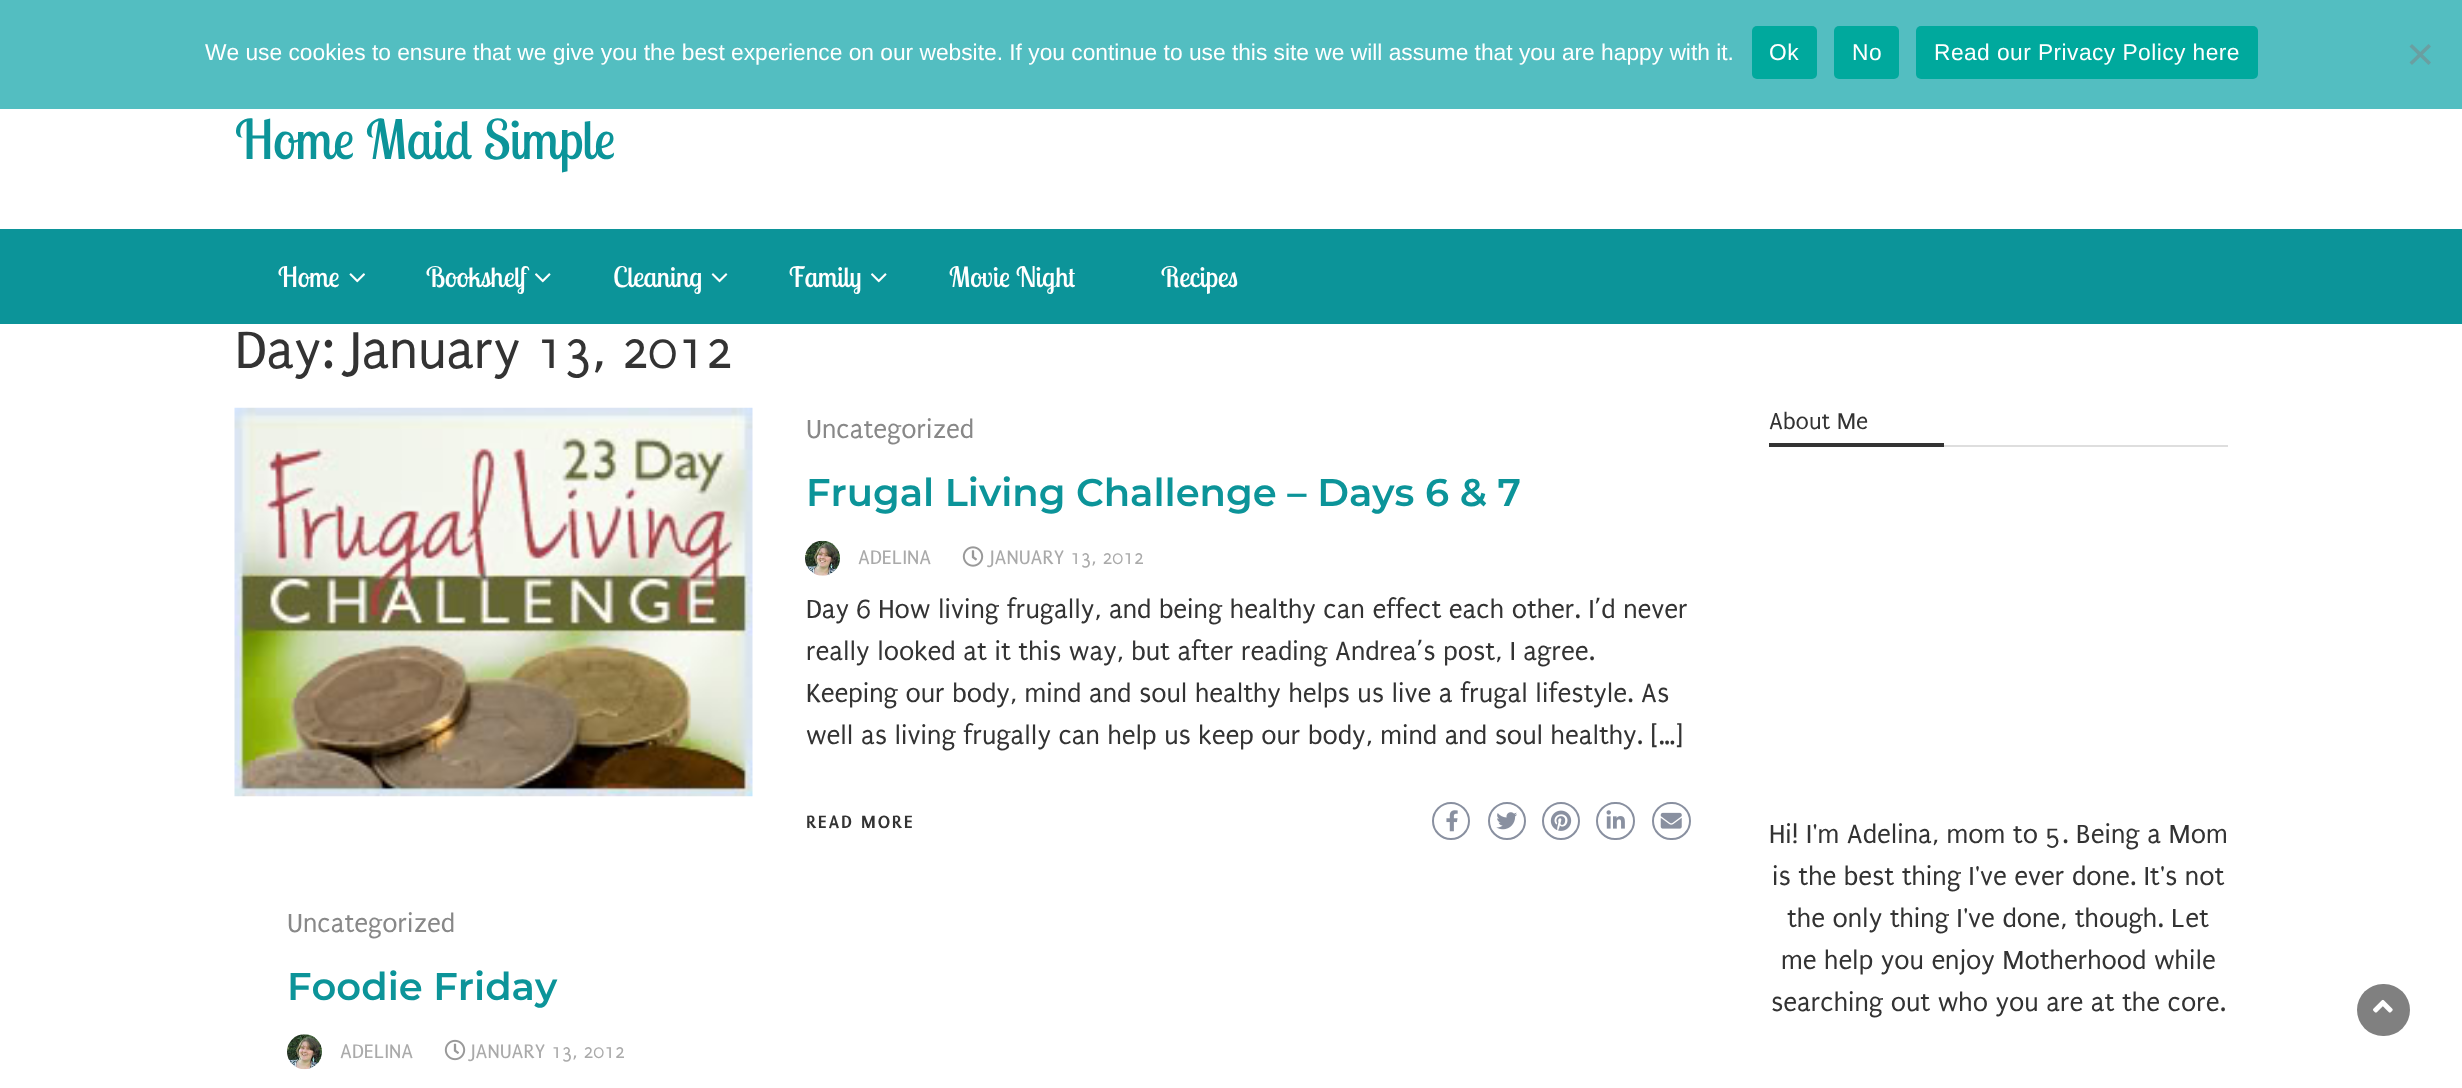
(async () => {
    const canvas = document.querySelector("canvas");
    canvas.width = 2462;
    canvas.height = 1088;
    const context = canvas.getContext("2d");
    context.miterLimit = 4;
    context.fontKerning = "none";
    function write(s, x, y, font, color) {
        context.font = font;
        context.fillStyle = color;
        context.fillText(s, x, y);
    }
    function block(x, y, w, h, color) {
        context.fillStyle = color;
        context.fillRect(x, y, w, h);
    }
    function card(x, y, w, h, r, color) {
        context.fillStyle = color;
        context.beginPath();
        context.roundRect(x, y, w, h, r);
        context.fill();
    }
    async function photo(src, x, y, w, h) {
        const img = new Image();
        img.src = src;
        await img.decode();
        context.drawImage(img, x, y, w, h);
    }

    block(0, 0, 2462, 1088, "rgb(255, 255, 255)");
    block(0, 0, 2462, 109, "rgb(83, 190, 193)");
    write("We use cookies to ensure that we give you the best experience on our website. If you continue to use this site we will assume that you are happy with it.", 205, 60, "22.75px Liberation Sans", "rgb(255, 255, 255)");
    card(1752, 26, 65, 53, 5, "rgb(0, 169, 157)");
    context.letterSpacing = "0.45px";
    write("Ok", 1769, 60, "22.75px Liberation Sans", "rgb(255, 255, 255)");
    card(1834, 26, 65, 53, 5, "rgb(0, 169, 157)");
    write("No", 1852, 60, "22.75px Liberation Sans", "rgb(255, 255, 255)");
    card(1916, 26, 342, 53, 5, "rgb(0, 169, 157)");
    write("Read our Privacy Policy here", 1934, 60, "22.75px Liberation Sans", "rgb(255, 255, 255)");
    context.fillStyle = "rgb(106, 159, 161)";
    context.beginPath();
    context.moveTo(2428.5, 44);
    context.lineTo(2431, 46.5);
    context.lineTo(2412, 65);
    context.lineTo(2409.5, 62.5);
    context.closePath();
    context.fill();
    context.beginPath();
    context.moveTo(2409.5, 46.5);
    context.lineTo(2412, 44);
    context.lineTo(2431, 62.5);
    context.lineTo(2428.5, 65);
    context.closePath();
    context.fill();
    context.letterSpacing = "0px";
    write("Home Maid Simple", 235, 159, "54.25px Lobster Two", "rgb(12, 148, 153)");
    block(0, 229, 2462, 95, "rgb(12, 148, 153)");
    write("Home", 278, 287, "28px Lobster Two", "rgb(255, 255, 255)");
    await photo("media/1.png", 349, 273, 16, 10);
    write("Bookshelf", 426, 287, "28px Lobster Two", "rgb(255, 255, 255)");
    await photo("media/2.png", 535, 273, 16, 10);
    write("Cleaning", 613, 287, "28px Lobster Two", "rgb(255, 255, 255)");
    await photo("media/3.png", 711, 273, 17, 10);
    write("Family", 789, 287, "28px Lobster Two", "rgb(255, 255, 255)");
    await photo("media/2.png", 871, 273, 16, 10);
    write("Movie Night", 949, 287, "28px Lobster Two", "rgb(255, 255, 255)");
    write("Recipes", 1161, 287, "28px Lobster Two", "rgb(255, 255, 255)");
    write("Day: January 13, 2012", 235, 368, "56px Puritan", "rgb(51, 51, 51)");
    await photo("media/4.png", 234, 407, 519, 390);
    write("Uncategorized", 806, 438, "28px Puritan", "rgb(136, 136, 136)");
    write("Frugal Living Challenge – Days 6 & 7", 806, 506, "600 38.5px Montserrat", "rgb(12, 148, 153)");
    await photo("media/5.png", 805, 540, 35, 36);
    write("ADELINA", 858, 564, "21px Puritan", "rgb(170, 170, 170)");
    await photo("media/6.png", 962, 546, 22, 21);
    write("JANUARY 13, 2012", 990, 564, "21px Puritan", "rgb(170, 170, 170)");
    write("Day 6 How living frugally, and being healthy can effect each other. I’d never", 806, 618, "28px Puritan", "rgb(51, 51, 51)");
    write("really looked at it this way, but after reading Andrea’s post, I agree.", 806, 660, "28px Puritan", "rgb(51, 51, 51)");
    write("Keeping our body, mind and soul healthy helps us live a frugal lifestyle. As", 806, 702, "28px Puritan", "rgb(51, 51, 51)");
    write("well as living frugally can help us keep our body, mind and soul healthy. […]", 806, 744, "28px Puritan", "rgb(51, 51, 51)");
    context.letterSpacing = "1.75px";
    write("READ MORE", 806, 828, "bold 19.25px Puritan", "rgb(51, 51, 51)");
    context.beginPath();
    context.arc(1451, 821, 18, 0, Math.PI * 2);
    context.strokeStyle = "rgb(137, 144, 160)";
    context.lineWidth = 2;
    context.stroke();
    await photo("media/7.png", 1446, 810, 12, 22);
    context.beginPath();
    context.arc(1507, 821, 18, 0, Math.PI * 2);
    context.stroke();
    await photo("media/8.png", 1496, 812, 21, 18);
    context.beginPath();
    context.arc(1561, 821, 18, 0, Math.PI * 2);
    context.stroke();
    await photo("media/9.png", 1550, 810, 22, 21);
    context.beginPath();
    context.roundRect(1597, 803, 37, 36, 18);
    context.stroke();
    await photo("media/10.png", 1606, 810, 19, 19);
    context.beginPath();
    context.roundRect(1653, 803, 37, 36, 18);
    context.stroke();
    await photo("media/11.png", 1660, 812, 22, 17);
    context.letterSpacing = "0px";
    write("Uncategorized", 287, 932, "28px Puritan", "rgb(136, 136, 136)");
    write("Foodie Friday", 287, 1000, "600 38.5px Montserrat", "rgb(12, 148, 153)");
    await photo("media/12.png", 287, 1034, 35, 36);
    write("ADELINA", 340, 1058, "21px Puritan", "rgb(170, 170, 170)");
    await photo("media/13.png", 444, 1039, 22, 22);
    write("JANUARY 13, 2012", 471, 1058, "21px Puritan", "rgb(170, 170, 170)");
    block(1944, 445, 284, 2, "rgb(222, 222, 222)");
    write("About Me", 1769, 429, "24.5px Puritan", "rgb(51, 51, 51)");
    block(1769, 443, 175, 4, "rgb(51, 51, 51)");
    write("Hi! I'm Adelina, mom to 5. Being a Mom", 1769, 843, "28px Puritan", "rgb(51, 51, 51)");
    write("is the best thing I've ever done. It's not", 1772, 885, "28px Puritan", "rgb(51, 51, 51)");
    write("the only thing I've done, though. Let", 1787, 927, "28px Puritan", "rgb(51, 51, 51)");
    write("me help you enjoy Motherhood while", 1781, 969, "28px Puritan", "rgb(51, 51, 51)");
    write("searching out who you are at the core.", 1771, 1011, "28px Puritan", "rgb(51, 51, 51)");
    card(2357, 984, 53, 52, 26, "rgb(128, 128, 128)");
    await photo("media/14.png", 2373, 999, 20, 14);
})();
